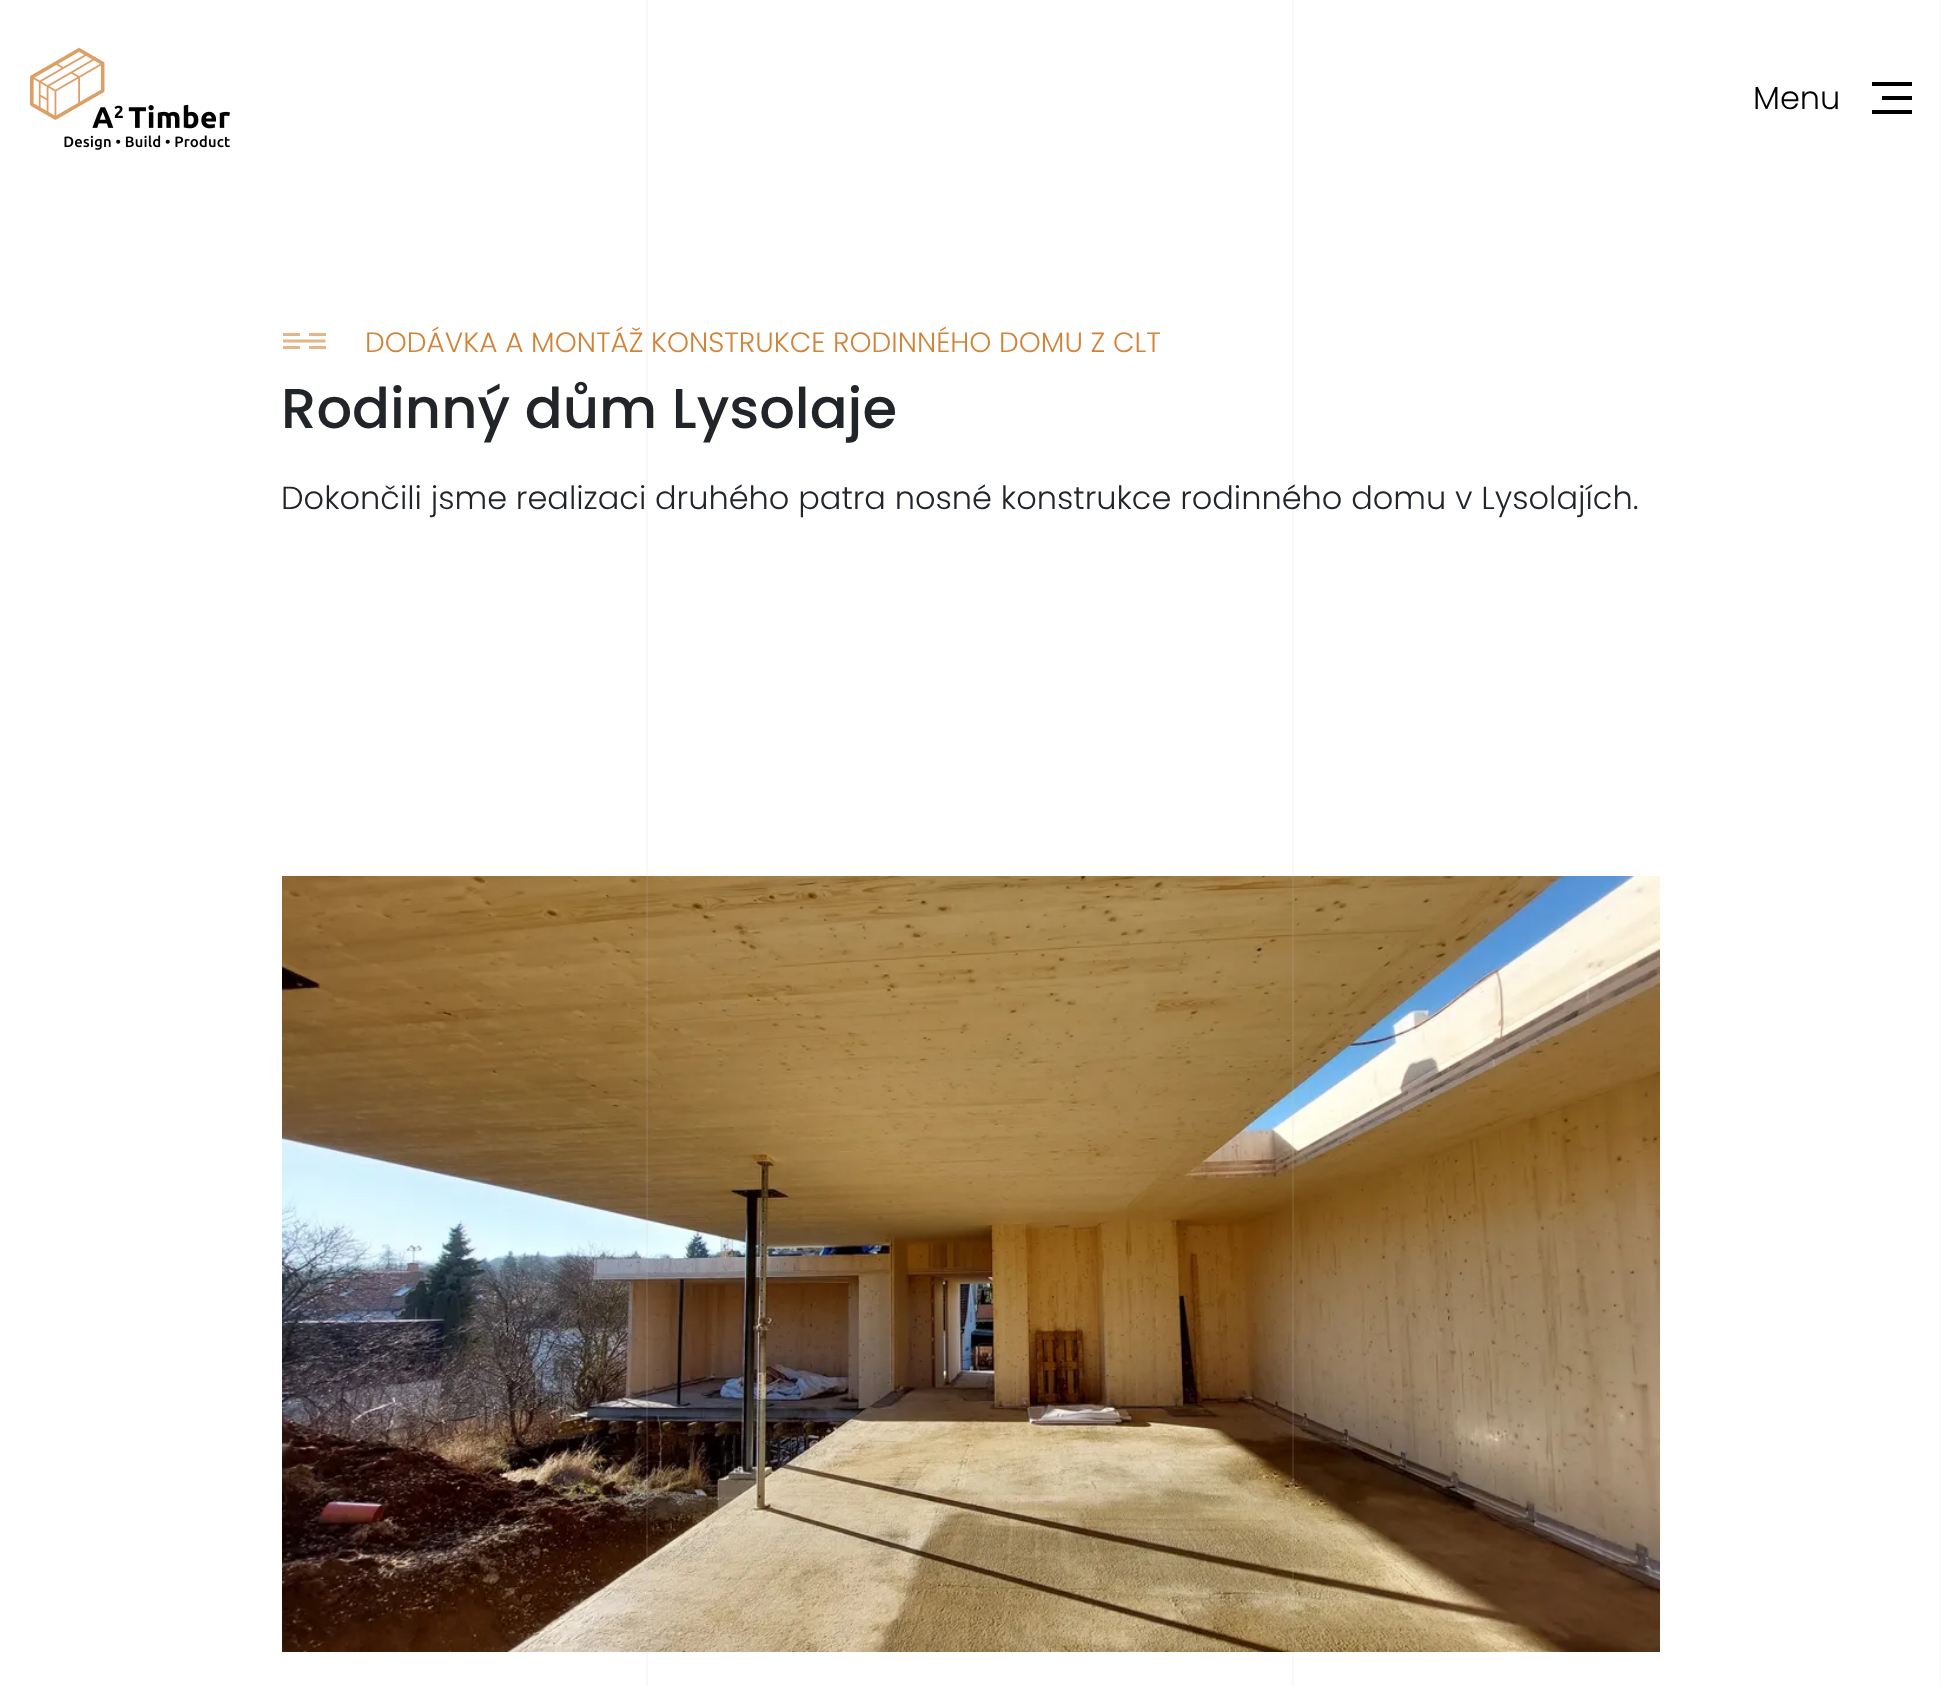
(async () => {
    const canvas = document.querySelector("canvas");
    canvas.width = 1941;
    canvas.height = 1686;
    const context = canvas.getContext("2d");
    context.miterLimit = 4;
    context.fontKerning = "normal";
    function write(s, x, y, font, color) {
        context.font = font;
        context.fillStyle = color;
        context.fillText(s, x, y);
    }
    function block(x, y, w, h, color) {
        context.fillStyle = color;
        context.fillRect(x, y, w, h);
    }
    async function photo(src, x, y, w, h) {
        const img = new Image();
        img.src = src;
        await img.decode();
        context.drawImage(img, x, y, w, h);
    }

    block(0, 0, 1941, 1686, "rgb(255, 255, 255)");
    await photo("media/2.png", 282, 876, 1378, 776);
    block(646, 0, 2, 1686, "rgba(197, 197, 197, 0.12)");
    block(1292, 0, 2, 1686, "rgba(197, 197, 197, 0.12)");
    block(1940, 0, 1, 1686, "rgb(248, 248, 248)");
    await photo("media/1.png", 30, 48, 200, 102);
    write("Menu", 1753, 109, "300 32px Poppins", "rgb(0, 0, 0)");
    block(1872, 82, 40, 4, "rgb(0, 0, 0)");
    block(1882, 96, 30, 4, "rgb(0, 0, 0)");
    block(1872, 110, 40, 4, "rgb(0, 0, 0)");
    block(283, 333, 17, 3, "rgb(228, 181, 136)");
    context.beginPath();
    context.moveTo(283, 341);
    context.lineTo(325.5, 341);
    context.strokeStyle = "rgb(228, 181, 136)";
    context.lineWidth = 3;
    context.stroke();
    block(283, 346, 17, 3, "rgb(228, 181, 136)");
    block(309, 346, 17, 3, "rgb(228, 181, 136)");
    block(309, 333, 17, 3, "rgb(228, 181, 136)");
    write("DODÁVKA A MONTÁŽ KONSTRUKCE RODINNÉHO DOMU Z CLT", 365, 352, "300 28px Poppins", "rgb(210, 131, 55)");
    write("Rodinný dům Lysolaje", 281, 428, "500 56px Poppins", "rgb(33, 37, 41)");
    write("Dokončili jsme realizaci druhého patra nosné konstrukce rodinného domu v Lysolajích.", 281, 509, "300 32px Poppins", "rgb(33, 37, 41)");
})();
